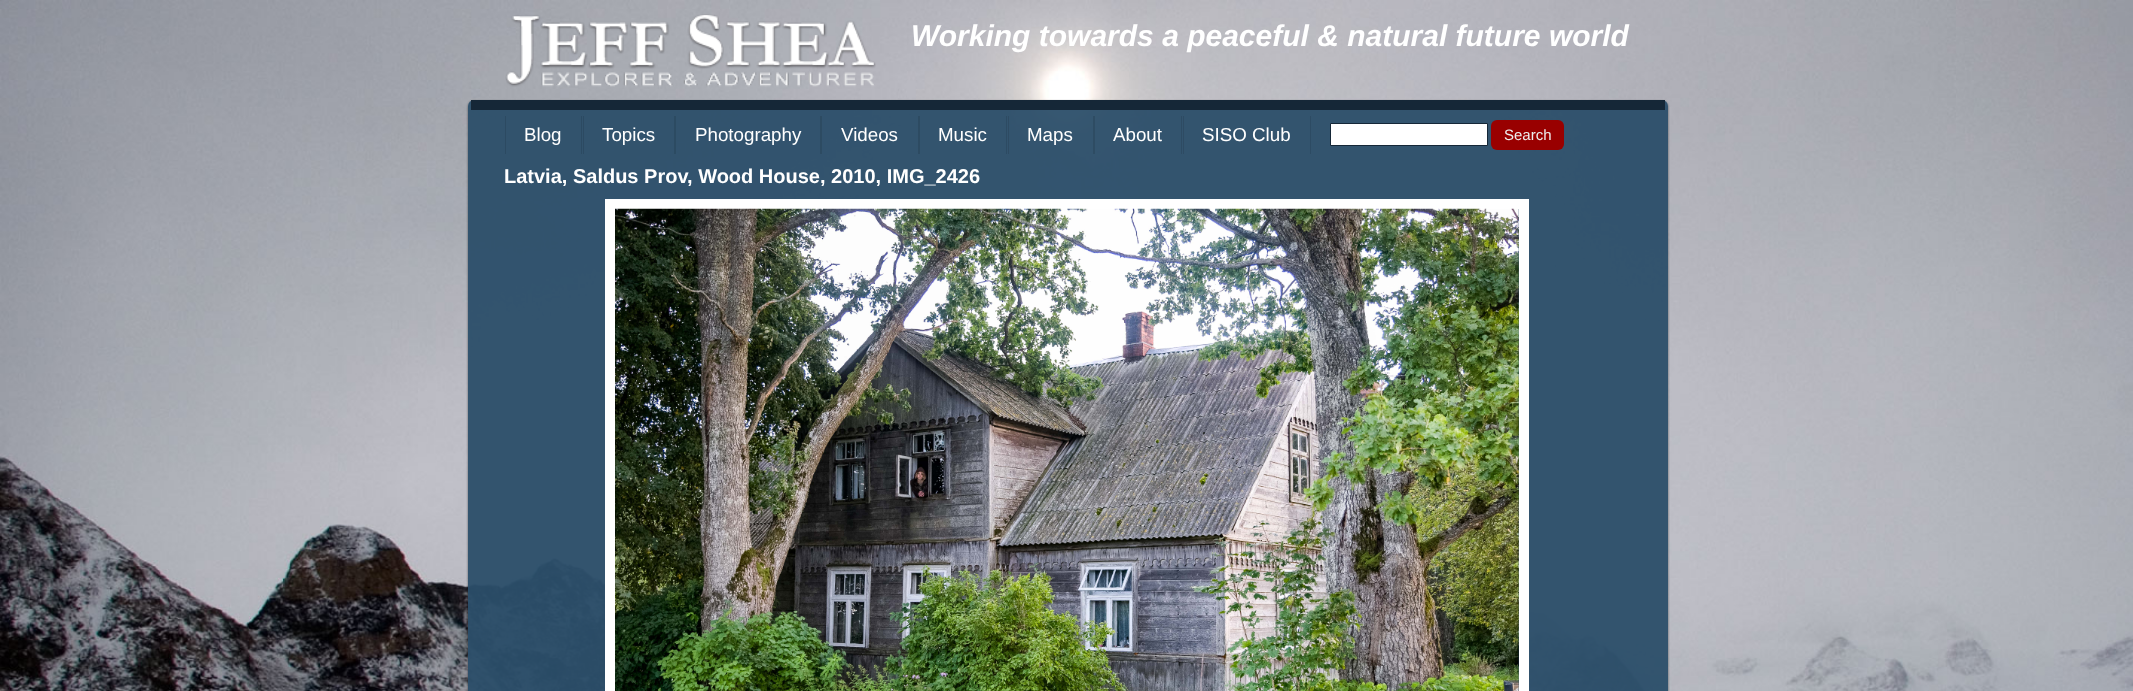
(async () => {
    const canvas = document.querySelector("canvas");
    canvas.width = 2133;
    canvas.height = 691;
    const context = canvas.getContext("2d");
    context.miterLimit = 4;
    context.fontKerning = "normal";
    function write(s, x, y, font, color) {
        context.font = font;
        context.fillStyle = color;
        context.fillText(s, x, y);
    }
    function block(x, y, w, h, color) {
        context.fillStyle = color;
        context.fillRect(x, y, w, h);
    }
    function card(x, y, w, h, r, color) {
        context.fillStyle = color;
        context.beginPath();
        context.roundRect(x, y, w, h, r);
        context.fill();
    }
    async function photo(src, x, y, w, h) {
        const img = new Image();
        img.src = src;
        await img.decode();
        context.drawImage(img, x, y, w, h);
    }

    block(0, 0, 2133, 691, "rgb(255, 255, 255)");
    await photo("media/1.png", 0, 0, 2133, 691);
    await photo("media/2.png", 505, 14, 371, 73);
    write("Working towards a peaceful & natural future world", 911, 46, "italic bold 30px Liberation Sans", "rgb(255, 255, 255)");
    context.save();
    context.beginPath();
    context.moveTo(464, 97);
    context.lineTo(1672, 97);
    context.lineTo(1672, 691);
    context.lineTo(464, 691);
    context.closePath();
    context.moveTo(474, 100);
    context.lineTo(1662, 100);
    context.bezierCurveTo(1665.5, 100, 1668, 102.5, 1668, 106);
    context.lineTo(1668, 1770);
    context.bezierCurveTo(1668, 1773.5, 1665.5, 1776, 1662, 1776);
    context.lineTo(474, 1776);
    context.bezierCurveTo(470.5, 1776, 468, 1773.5, 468, 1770);
    context.lineTo(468, 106);
    context.bezierCurveTo(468, 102.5, 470.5, 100, 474, 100);
    context.closePath();
    context.clip("evenodd");
    context.fillStyle = "rgba(0, 0, 0, 0.5)";
    context.filter = "blur(1px)";
    context.beginPath();
    context.roundRect(468, 101, 1200, 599, 6);
    context.fill();
    context.filter = "none";
    context.restore();
    card(468, 100, 1200, 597, 6, "rgba(43, 78, 105, 0.95)");
    block(471, 100, 1194, 10, "rgb(21, 39, 55)");
    block(581, 116, 1, 38, "rgb(44, 74, 98)");
    block(505, 116, 1, 38, "rgb(44, 74, 98)");
    write("Blog", 524, 141, "18.75px Liberation Sans", "rgb(255, 255, 255)");
    block(674, 116, 2, 38, "rgb(44, 75, 98)");
    block(583, 116, 1, 38, "rgb(44, 74, 98)");
    write("Topics", 602, 141, "18.75px Liberation Sans", "rgb(255, 255, 255)");
    block(820, 116, 2, 38, "rgb(45, 75, 98)");
    write("Photography", 695, 141, "18.75px Liberation Sans", "rgb(255, 255, 255)");
    block(918, 116, 2, 38, "rgb(45, 75, 98)");
    write("Videos", 841, 141, "18.75px Liberation Sans", "rgb(255, 255, 255)");
    block(1006, 116, 1, 38, "rgb(45, 75, 99)");
    write("Music", 938, 141, "18.75px Liberation Sans", "rgb(255, 255, 255)");
    block(1093, 116, 2, 38, "rgb(46, 76, 99)");
    block(1008, 116, 1, 38, "rgb(46, 75, 99)");
    write("Maps", 1027, 141, "18.75px Liberation Sans", "rgb(255, 255, 255)");
    block(1181, 116, 1, 38, "rgb(46, 75, 99)");
    write("About", 1113, 141, "18.75px Liberation Sans", "rgb(255, 255, 255)");
    block(1310, 116, 1, 38, "rgb(45, 75, 99)");
    block(1183, 116, 1, 38, "rgb(46, 75, 99)");
    write("SISO Club", 1202, 141, "18.75px Liberation Sans", "rgb(255, 255, 255)");
    context.beginPath();
    context.rect(1330.5, 123.5, 157, 22);
    context.fill();
    context.strokeStyle = "rgb(21, 39, 55)";
    context.stroke();
    card(1491, 120, 73, 30, 6, "rgb(153, 0, 0)");
    write("Search", 1504, 140, "15px Liberation Sans", "rgb(238, 238, 238)");
    write("Latvia, Saldus Prov, Wood House, 2010, IMG_2426", 504, 183, "bold 20px Liberation Sans", "rgb(255, 255, 255)");
    context.strokeStyle = "rgb(255, 255, 255)";
    context.lineWidth = 10;
    context.strokeRect(610, 204, 914, 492);
    await photo("media/3.png", 615, 208, 904, 483);
})();
